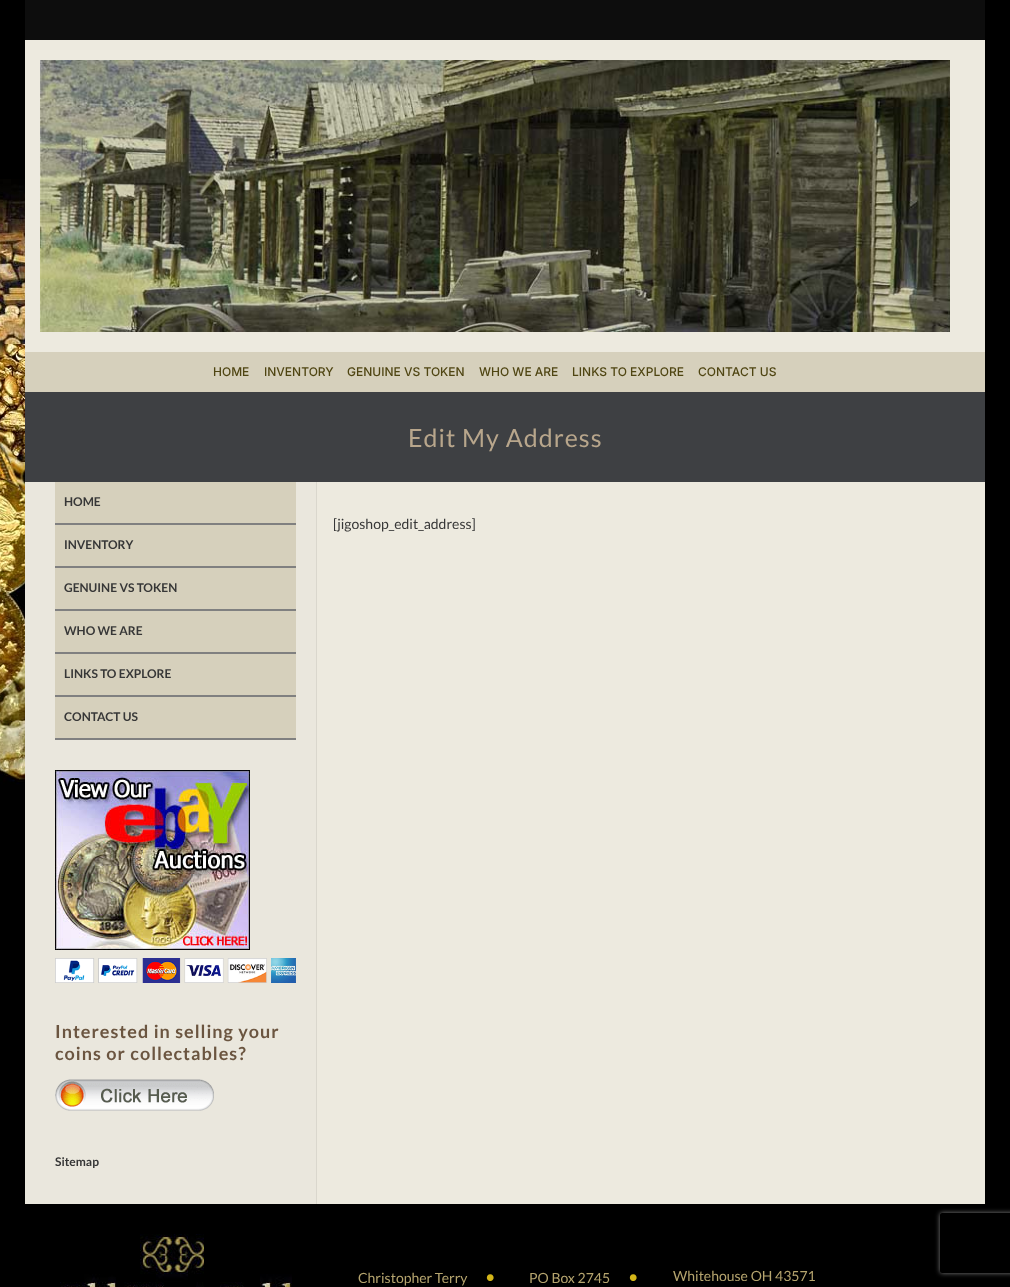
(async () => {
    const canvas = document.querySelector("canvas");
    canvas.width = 1010;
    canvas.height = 1287;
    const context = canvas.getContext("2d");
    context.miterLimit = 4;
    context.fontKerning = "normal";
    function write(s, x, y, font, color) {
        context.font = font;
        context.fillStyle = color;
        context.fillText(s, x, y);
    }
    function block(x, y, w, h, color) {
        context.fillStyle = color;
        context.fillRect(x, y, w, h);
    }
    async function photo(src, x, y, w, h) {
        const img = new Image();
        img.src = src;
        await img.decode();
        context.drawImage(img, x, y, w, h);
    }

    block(0, 0, 1010, 1287, "rgb(0, 0, 0)");
    await photo("media/1.png", 0, 179, 25, 621);
    block(317, 482, 668, 722, "rgb(237, 234, 223)");
    block(25, 0, 960, 40, "rgb(13, 13, 13)");
    block(25, 40, 960, 312, "rgb(237, 234, 223)");
    await photo("media/2.png", 40, 60, 910, 272);
    block(25, 352, 960, 40, "rgb(214, 208, 188)");
    write("HOME", 213, 376, "500 12px Inter", "rgb(79, 69, 18)");
    write("INVENTORY", 264, 376, "500 12px Inter", "rgb(79, 69, 18)");
    write("GENUINE VS TOKEN", 347, 376, "500 12px Inter", "rgb(79, 69, 18)");
    write("WHO WE ARE", 479, 376, "500 12px Inter", "rgb(79, 69, 18)");
    write("LINKS TO EXPLORE", 572, 376, "500 12px Inter", "rgb(79, 69, 18)");
    write("CONTACT US", 698, 376, "500 12px Inter", "rgb(79, 69, 18)");
    block(25, 392, 960, 90, "rgb(62, 64, 67)");
    context.letterSpacing = "1px";
    write("Edit My Address", 408, 447, "25px Lato", "rgb(184, 166, 140)");
    block(316, 482, 1, 722, "rgb(218, 215, 205)");
    block(25, 482, 291, 722, "rgb(234, 231, 221)");
    block(55, 482, 241, 41, "rgb(214, 208, 188)");
    block(55, 523, 241, 2, "rgb(128, 128, 128)");
    context.letterSpacing = "0px";
    write("HOME", 64, 506, "bold 12px Lato", "rgb(55, 55, 55)");
    block(55, 525, 241, 41, "rgb(214, 208, 188)");
    block(55, 566, 241, 2, "rgb(128, 128, 128)");
    write("INVENTORY", 64, 549, "bold 12px Lato", "rgb(55, 55, 55)");
    block(55, 568, 241, 41, "rgb(214, 208, 188)");
    block(55, 609, 241, 2, "rgb(128, 128, 128)");
    write("GENUINE VS TOKEN", 64, 592, "bold 12px Lato", "rgb(55, 55, 55)");
    block(55, 611, 241, 41, "rgb(214, 208, 188)");
    block(55, 652, 241, 2, "rgb(128, 128, 128)");
    write("WHO WE ARE", 64, 635, "bold 12px Lato", "rgb(55, 55, 55)");
    block(55, 654, 241, 41, "rgb(214, 208, 188)");
    block(55, 695, 241, 2, "rgb(128, 128, 128)");
    write("LINKS TO EXPLORE", 64, 678, "bold 12px Lato", "rgb(55, 55, 55)");
    block(55, 697, 241, 41, "rgb(214, 208, 188)");
    block(55, 738, 241, 2, "rgb(128, 128, 128)");
    write("CONTACT US", 64, 721, "bold 12px Lato", "rgb(55, 55, 55)");
    await photo("media/3.png", 55, 770, 195, 180);
    await photo("media/4.png", 55, 958, 241, 25);
    context.letterSpacing = "1px";
    write("Interested in selling your", 55, 1038, "bold 18px Lato", "rgb(107, 85, 64)");
    write("coins or collectables?", 55, 1060, "bold 18px Lato", "rgb(107, 85, 64)");
    await photo("media/5.png", 55, 1079, 159, 32);
    context.letterSpacing = "0px";
    write("Sitemap", 55, 1166, "bold 12px Lato", "rgb(55, 55, 55)");
    write("[jigoshop_edit_address]", 333, 529, "14px Lato", "rgb(55, 55, 55)");
    await photo("media/6.png", 60, 1234, 232, 53);
    write("Christopher Terry", 358, 1283, "14px Lato", "rgb(181, 164, 110)");
    write("•", 485, 1283, "18px Lato", "rgb(212, 182, 25)");
    write("PO Box 2745", 529, 1283, "14px Lato", "rgb(181, 164, 110)");
    write("•", 628, 1283, "18px Lato", "rgb(212, 182, 25)");
    write("Whitehouse OH 43571", 673, 1281, "14px Lato", "rgb(181, 164, 110)");
    context.save();
    context.beginPath();
    context.moveTo(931, 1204);
    context.lineTo(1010, 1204);
    context.lineTo(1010, 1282);
    context.lineTo(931, 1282);
    context.closePath();
    context.moveTo(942, 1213);
    context.lineTo(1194, 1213);
    context.bezierCurveTo(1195, 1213, 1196, 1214, 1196, 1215);
    context.lineTo(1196, 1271);
    context.bezierCurveTo(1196, 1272, 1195, 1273, 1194, 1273);
    context.lineTo(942, 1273);
    context.bezierCurveTo(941, 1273, 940, 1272, 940, 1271);
    context.lineTo(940, 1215);
    context.bezierCurveTo(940, 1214, 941, 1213, 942, 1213);
    context.closePath();
    context.clip("evenodd");
    context.fillStyle = "rgb(128, 128, 128)";
    context.filter = "blur(2.5px)";
    context.beginPath();
    context.roundRect(940, 1213, 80, 60, 2);
    context.fill();
    context.filter = "none";
    context.restore();
})();
